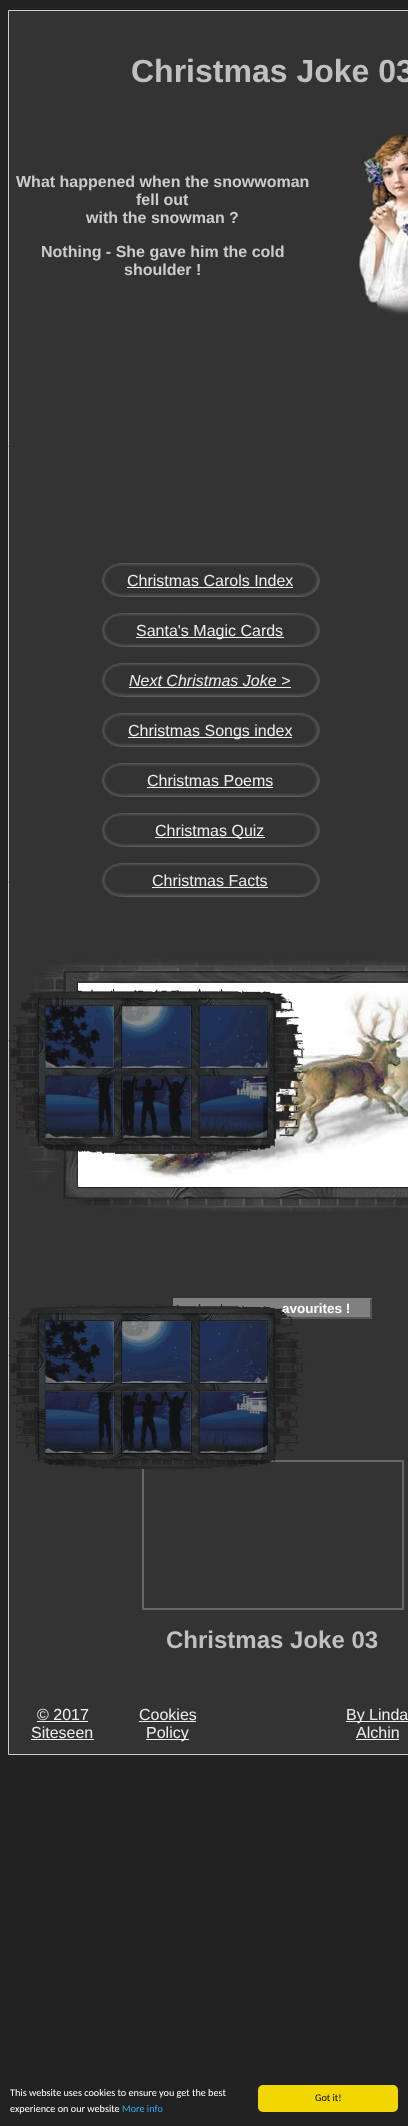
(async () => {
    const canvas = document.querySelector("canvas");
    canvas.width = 408;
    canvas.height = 2126;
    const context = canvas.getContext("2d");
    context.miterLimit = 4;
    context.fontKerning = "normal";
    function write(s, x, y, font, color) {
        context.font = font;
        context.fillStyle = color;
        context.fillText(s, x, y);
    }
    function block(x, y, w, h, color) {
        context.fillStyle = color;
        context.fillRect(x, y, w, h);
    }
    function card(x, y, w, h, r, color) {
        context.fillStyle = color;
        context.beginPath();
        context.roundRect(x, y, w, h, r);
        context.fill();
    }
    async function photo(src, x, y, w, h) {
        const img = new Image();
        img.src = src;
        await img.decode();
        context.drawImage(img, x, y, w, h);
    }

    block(0, 0, 408, 2126, "rgb(34, 34, 34)");
    context.fillStyle = "rgb(51, 51, 51)";
    context.beginPath();
    context.rect(8.5, 10.5, 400, 1744);
    context.fill();
    context.strokeStyle = "rgb(204, 204, 204)";
    context.stroke();
    write("Christmas Joke 03", 131, 82, "bold 32px Liberation Sans", "rgb(192, 192, 192)");
    write("What happened when the snowwoman", 16, 187, "bold 16px Liberation Sans", "rgb(204, 204, 204)");
    write("fell out", 136, 205, "bold 16px Liberation Sans", "rgb(204, 204, 204)");
    write("with the snowman ?", 86, 223, "bold 16px Liberation Sans", "rgb(204, 204, 204)");
    write("Nothing - She gave him the cold", 41, 257, "bold 16px Liberation Sans", "rgb(204, 204, 204)");
    write("shoulder !", 124, 275, "bold 16px Liberation Sans", "rgb(204, 204, 204)");
    await photo("media/1.png", 357, 126, 51, 189);
    await photo("media/2.png", 102, 563, 218, 34);
    write("Christmas Carols Index", 127, 586, "16px Liberation Sans", "rgb(238, 238, 238)");
    block(127, 587, 166, 1, "rgb(238, 238, 238)");
    await photo("media/2.png", 102, 613, 218, 34);
    block(136, 637, 148, 1, "rgb(238, 238, 238)");
    write("Santa's Magic Cards", 136, 636, "16px Liberation Sans", "rgb(238, 238, 238)");
    await photo("media/2.png", 102, 663, 218, 34);
    write("Next Christmas Joke >", 129, 686, "italic 16px Liberation Sans", "rgb(238, 238, 238)");
    block(129, 687, 162, 1, "rgb(238, 238, 238)");
    await photo("media/2.png", 102, 713, 218, 34);
    block(128, 737, 164, 1, "rgb(238, 238, 238)");
    write("Christmas Songs index", 128, 736, "16px Liberation Sans", "rgb(238, 238, 238)");
    await photo("media/2.png", 102, 763, 218, 34);
    write("Christmas Poems", 147, 786, "16px Liberation Sans", "rgb(238, 238, 238)");
    block(147, 787, 126, 1, "rgb(238, 238, 238)");
    await photo("media/2.png", 102, 813, 218, 34);
    block(155, 837, 110, 1, "rgb(238, 238, 238)");
    write("Christmas Quiz", 155, 836, "16px Liberation Sans", "rgb(238, 238, 238)");
    await photo("media/2.png", 102, 863, 218, 34);
    write("Christmas Facts", 152, 886, "16px Liberation Sans", "rgb(238, 238, 238)");
    block(152, 887, 116, 1, "rgb(238, 238, 238)");
    await photo("media/3.png", 15, 959, 393, 253);
    await photo("media/4.png", 89, 990, 319, 196);
    block(173, 1298, 199, 21, "rgb(128, 128, 128)");
    context.fillStyle = "rgb(85, 85, 85)";
    context.beginPath();
    context.moveTo(372, 1298);
    context.lineTo(372, 1319);
    context.lineTo(370, 1317);
    context.lineTo(370, 1300);
    context.closePath();
    context.fill();
    context.beginPath();
    context.moveTo(372, 1319);
    context.lineTo(173, 1319);
    context.lineTo(175, 1317);
    context.lineTo(370, 1317);
    context.closePath();
    context.fill();
    context.fillStyle = "rgb(128, 128, 128)";
    context.beginPath();
    context.moveTo(173, 1319);
    context.lineTo(173, 1298);
    context.lineTo(175, 1300);
    context.lineTo(175, 1317);
    context.closePath();
    context.fill();
    write("avourites !", 282, 1313, "bold 13.5px Liberation Sans", "rgb(255, 255, 255)");
    context.strokeStyle = "rgb(102, 102, 102)";
    context.strokeRect(142.5, 1460.5, 261, 149);
    context.strokeRect(143.5, 1461.5, 259, 147);
    write("Christmas Joke 03", 166, 1648, "bold 24px Liberation Sans", "rgb(192, 192, 192)");
    write("© 2017", 37, 1720, "16px Liberation Sans", "rgb(238, 238, 238)");
    block(37, 1721, 51, 1, "rgb(238, 238, 238)");
    write("Siteseen", 31, 1738, "16px Liberation Sans", "rgb(238, 238, 238)");
    block(31, 1739, 63, 1, "rgb(238, 238, 238)");
    write("Cookies", 139, 1720, "16px Liberation Sans", "rgb(238, 238, 238)");
    block(139, 1721, 57, 1, "rgb(238, 238, 238)");
    block(146, 1739, 43, 1, "rgb(238, 238, 238)");
    write("Policy", 146, 1738, "16px Liberation Sans", "rgb(238, 238, 238)");
    block(346, 1721, 62, 1, "rgb(238, 238, 238)");
    write("By Linda", 346, 1720, "16px Liberation Sans", "rgb(238, 238, 238)");
    write("Alchin", 356, 1738, "16px Liberation Sans", "rgb(238, 238, 238)");
    block(356, 1739, 43, 1, "rgb(238, 238, 238)");
    await photo("media/5.png", 8, 988, 297, 166);
    await photo("media/6.png", 8, 1304, 297, 165);
    write("This website uses cookies to ensure you get the best", 10, 2096, "10.2px Carlito", "rgb(255, 255, 255)");
    write("experience on our website", 10, 2112, "10.2px Carlito", "rgb(255, 255, 255)");
    write("More info", 122, 2112, "10.2px Carlito", "rgb(49, 168, 240)");
    card(258, 2085, 140, 27, 5, "rgb(241, 214, 0)");
    write("Got it!", 315, 2101, "10.2px Carlito", "rgb(0, 0, 0)");
})();
